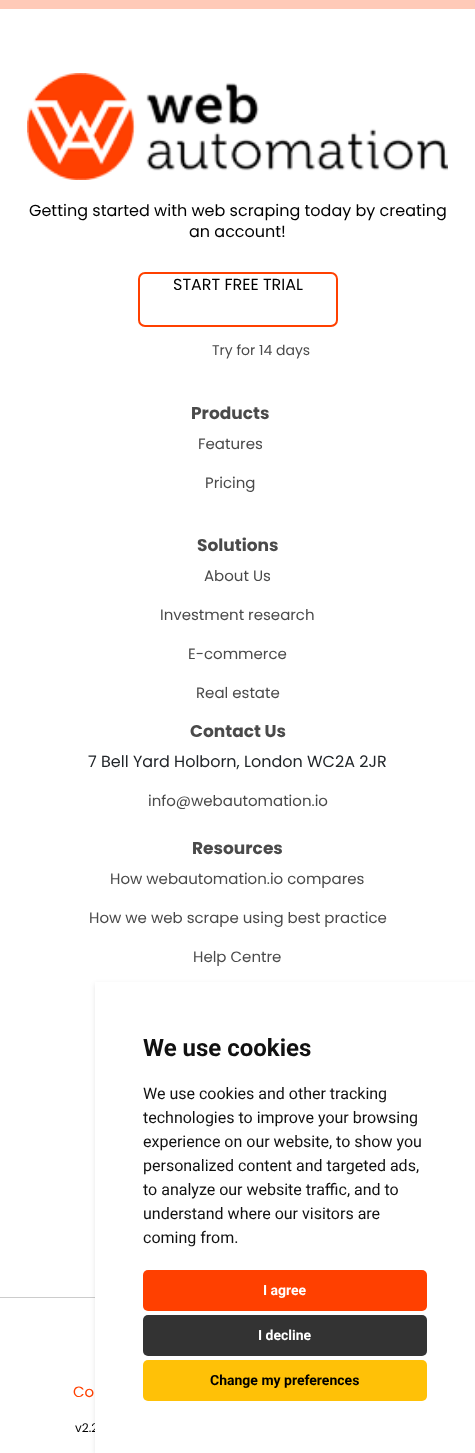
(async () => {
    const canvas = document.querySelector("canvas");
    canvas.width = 475;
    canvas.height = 1453;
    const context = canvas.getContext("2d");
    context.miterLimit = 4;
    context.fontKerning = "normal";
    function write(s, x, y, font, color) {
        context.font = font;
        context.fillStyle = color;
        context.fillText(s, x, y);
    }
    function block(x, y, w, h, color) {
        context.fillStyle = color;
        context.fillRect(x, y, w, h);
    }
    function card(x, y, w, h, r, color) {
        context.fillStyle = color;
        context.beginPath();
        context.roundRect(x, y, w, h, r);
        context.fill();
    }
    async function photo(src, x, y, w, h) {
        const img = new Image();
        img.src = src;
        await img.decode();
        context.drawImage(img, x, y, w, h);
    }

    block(0, 0, 475, 1453, "rgb(255, 255, 255)");
    block(0, 0, 475, 9, "rgb(255, 202, 184)");
    await photo("media/1.png", 27, 73, 421, 107);
    write("Getting started with web scraping today by creating", 29, 216, "16px Poppins", "rgb(0, 0, 0)");
    write("an account!", 189, 237, "16px Poppins", "rgb(0, 0, 0)");
    context.beginPath();
    context.roundRect(139, 273, 198, 53, 6);
    context.strokeStyle = "rgb(255, 64, 0)";
    context.lineWidth = 2;
    context.stroke();
    write("START FREE TRIAL", 173, 290, "16px Poppins", "rgb(0, 0, 0)");
    write("Try for 14 days", 212, 355, "14px Poppins", "rgb(74, 74, 74)");
    write("Products", 191, 419, "bold 17px Poppins", "rgb(74, 74, 74)");
    write("Features", 198, 449, "15px Poppins", "rgb(74, 74, 74)");
    write("Pricing", 205, 488, "15px Poppins", "rgb(74, 74, 74)");
    write("Solutions", 197, 551, "bold 17px Poppins", "rgb(74, 74, 74)");
    write("About Us", 204, 581, "15px Poppins", "rgb(74, 74, 74)");
    write("Investment research", 160, 620, "15px Poppins", "rgb(74, 74, 74)");
    write("E-commerce", 188, 659, "15px Poppins", "rgb(74, 74, 74)");
    write("Real estate", 196, 698, "15px Poppins", "rgb(74, 74, 74)");
    write("Contact Us", 190, 737, "bold 17px Poppins", "rgb(74, 74, 74)");
    write("7 Bell Yard Holborn, London WC2A 2JR", 88, 767, "16px Poppins", "rgb(33, 37, 41)");
    write("info@webautomation.io", 148, 806, "15px Poppins", "rgb(74, 74, 74)");
    write("Resources", 192, 854, "bold 17px Poppins", "rgb(74, 74, 74)");
    write("How webautomation.io compares", 110, 884, "15px Poppins", "rgb(74, 74, 74)");
    write("How we web scrape using best practice", 89, 923, "15px Poppins", "rgb(74, 74, 74)");
    write("Help Centre", 193, 962, "15px Poppins", "rgb(74, 74, 74)");
    block(0, 1297, 95, 1, "rgb(204, 204, 204)");
    write("Co", 73, 1397, "15px Poppins", "rgb(255, 64, 0)");
    write("v2.2", 75, 1432, "12px Poppins", "rgb(0, 0, 0)");
    context.fillStyle = "rgba(0, 0, 0, 0.1)";
    context.filter = "blur(2.5px)";
    context.beginPath();
    context.rect(95, 984, 380, 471);
    context.fill();
    context.filter = "none";
    block(95, 982, 380, 471, "rgb(255, 255, 255)");
    write("We use cookies", 143, 1056, "bold 24px Roboto", "rgb(17, 17, 17)");
    write("We use cookies and other tracking", 143, 1099, "16px Roboto", "rgb(17, 17, 17)");
    write("technologies to improve your browsing", 143, 1123, "16px Roboto", "rgb(17, 17, 17)");
    write("experience on our website, to show you", 143, 1147, "16px Roboto", "rgb(17, 17, 17)");
    write("personalized content and targeted ads,", 143, 1171, "16px Roboto", "rgb(17, 17, 17)");
    write("to analyze our website traffic, and to", 143, 1195, "16px Roboto", "rgb(17, 17, 17)");
    write("understand where our visitors are", 143, 1219, "16px Roboto", "rgb(17, 17, 17)");
    write("coming from.", 143, 1243, "16px Roboto", "rgb(17, 17, 17)");
    card(143, 1270, 284, 41, 5, "rgb(255, 64, 0)");
    write("I agree", 263, 1295, "bold 14px Roboto", "rgb(255, 255, 255)");
    card(143, 1315, 284, 41, 5, "rgb(51, 51, 51)");
    write("I decline", 258, 1340, "bold 14px Roboto", "rgb(255, 255, 255)");
    card(143, 1360, 284, 41, 5, "rgb(255, 193, 7)");
    write("Change my preferences", 210, 1385, "bold 14px Roboto", "rgb(0, 0, 0)");
})();
